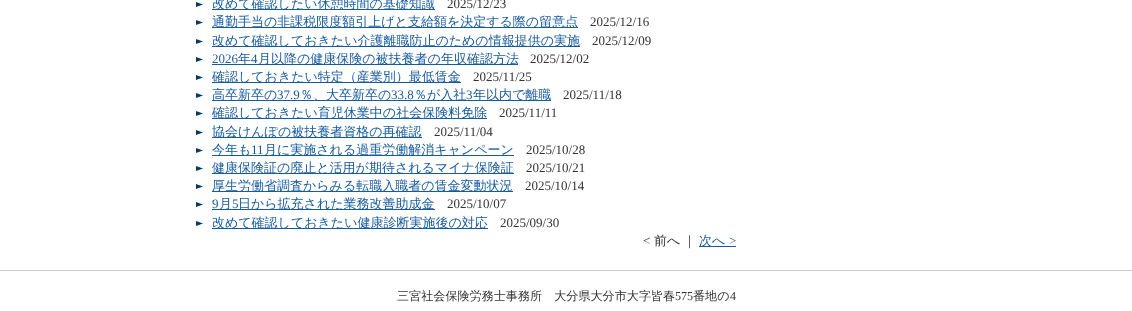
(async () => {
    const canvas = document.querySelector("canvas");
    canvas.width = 1132;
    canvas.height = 311;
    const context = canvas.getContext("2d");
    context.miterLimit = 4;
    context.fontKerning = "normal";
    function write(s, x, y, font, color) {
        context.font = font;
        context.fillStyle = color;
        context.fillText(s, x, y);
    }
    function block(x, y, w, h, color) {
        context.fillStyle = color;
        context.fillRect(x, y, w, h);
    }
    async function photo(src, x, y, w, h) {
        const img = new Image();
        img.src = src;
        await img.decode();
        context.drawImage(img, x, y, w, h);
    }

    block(0, 0, 1132, 311, "rgb(255, 255, 255)");
    await photo("media/1.png", 196, 2, 7, 5);
    block(212, 9, 223, 1, "rgb(23, 91, 157)");
    write("改めて確認したい休憩時間の基礎知識", 212, 8, "500 13px WenQuanYi Zen Hei", "rgb(23, 91, 157)");
    write("2025/12/23", 447, 8, "13px Liberation Serif", "rgb(51, 51, 51)");
    await photo("media/1.png", 196, 20, 7, 5);
    block(212, 27, 366, 1, "rgb(23, 91, 157)");
    write("通勤手当の非課税限度額引上げと支給額を決定する際の留意点", 212, 26, "500 13px WenQuanYi Zen Hei", "rgb(23, 91, 157)");
    write("2025/12/16", 590, 26, "13px Liberation Serif", "rgb(51, 51, 51)");
    await photo("media/1.png", 196, 39, 7, 5);
    block(212, 46, 368, 1, "rgb(23, 91, 157)");
    write("改めて確認しておきたい介護離職防止のための情報提供の実施", 212, 45, "500 13px WenQuanYi Zen Hei", "rgb(23, 91, 157)");
    write("2025/12/09", 592, 45, "13px Liberation Serif", "rgb(51, 51, 51)");
    await photo("media/1.png", 196, 57, 7, 5);
    write("2026", 212, 63, "13px Liberation Serif", "rgb(23, 91, 157)");
    block(212, 64, 306, 1, "rgb(23, 91, 157)");
    write("年", 238, 63, "500 13px WenQuanYi Zen Hei", "rgb(23, 91, 157)");
    write("4", 251, 63, "13px Liberation Serif", "rgb(23, 91, 157)");
    write("月以降の健康保険の被扶養者の年収確認方法", 258, 63, "500 13px WenQuanYi Zen Hei", "rgb(23, 91, 157)");
    write("2025/12/02", 530, 63, "13px Liberation Serif", "rgb(51, 51, 51)");
    await photo("media/1.png", 196, 75, 7, 5);
    block(212, 82, 249, 1, "rgb(23, 91, 157)");
    write("確認しておきたい特定（産業別）最低賃金", 212, 81, "500 13px WenQuanYi Zen Hei", "rgb(23, 91, 157)");
    write("2025/11/25", 473, 81, "13px Liberation Serif", "rgb(51, 51, 51)");
    await photo("media/1.png", 196, 93, 7, 5);
    block(212, 100, 339, 1, "rgb(23, 91, 157)");
    write("高卒新卒の", 212, 99, "500 13px WenQuanYi Zen Hei", "rgb(23, 91, 157)");
    write("37.9", 277, 99, "13px Liberation Serif", "rgb(23, 91, 157)");
    write("％、大卒新卒の", 300, 99, "500 13px WenQuanYi Zen Hei", "rgb(23, 91, 157)");
    write("33.8", 391, 99, "13px Liberation Serif", "rgb(23, 91, 157)");
    write("％が入社", 414, 99, "500 13px WenQuanYi Zen Hei", "rgb(23, 91, 157)");
    write("3", 466, 99, "13px Liberation Serif", "rgb(23, 91, 157)");
    write("年以内で離職", 473, 99, "500 13px WenQuanYi Zen Hei", "rgb(23, 91, 157)");
    write("2025/11/18", 563, 99, "13px Liberation Serif", "rgb(51, 51, 51)");
    await photo("media/1.png", 196, 111, 7, 5);
    block(212, 118, 275, 1, "rgb(23, 91, 157)");
    write("確認しておきたい育児休業中の社会保険料免除", 212, 117, "500 13px WenQuanYi Zen Hei", "rgb(23, 91, 157)");
    write("2025/11/11", 499, 117, "13px Liberation Serif", "rgb(51, 51, 51)");
    await photo("media/1.png", 196, 130, 7, 5);
    block(212, 137, 210, 1, "rgb(23, 91, 157)");
    write("協会けんぽの被扶養者資格の再確認", 212, 136, "500 13px WenQuanYi Zen Hei", "rgb(23, 91, 157)");
    write("2025/11/04", 434, 136, "13px Liberation Serif", "rgb(51, 51, 51)");
    await photo("media/1.png", 196, 148, 7, 5);
    block(212, 155, 302, 1, "rgb(23, 91, 157)");
    write("今年も", 212, 154, "500 13px WenQuanYi Zen Hei", "rgb(23, 91, 157)");
    write("11", 251, 154, "13px Liberation Serif", "rgb(23, 91, 157)");
    write("月に実施される過重労働解消キャンペーン", 264, 154, "500 13px WenQuanYi Zen Hei", "rgb(23, 91, 157)");
    write("2025/10/28", 526, 154, "13px Liberation Serif", "rgb(51, 51, 51)");
    await photo("media/1.png", 196, 166, 7, 5);
    block(212, 173, 302, 1, "rgb(23, 91, 157)");
    write("健康保険証の廃止と活用が期待されるマイナ保険証", 212, 172, "500 13px WenQuanYi Zen Hei", "rgb(23, 91, 157)");
    write("2025/10/21", 526, 172, "13px Liberation Serif", "rgb(51, 51, 51)");
    await photo("media/1.png", 196, 184, 7, 5);
    block(212, 191, 301, 1, "rgb(23, 91, 157)");
    write("厚生労働省調査からみる転職入職者の賃金変動状況", 212, 190, "500 13px WenQuanYi Zen Hei", "rgb(23, 91, 157)");
    write("2025/10/14", 525, 190, "13px Liberation Serif", "rgb(51, 51, 51)");
    await photo("media/1.png", 196, 202, 7, 5);
    write("9", 212, 208, "13px Liberation Serif", "rgb(23, 91, 157)");
    block(212, 209, 223, 1, "rgb(23, 91, 157)");
    write("月", 219, 208, "500 13px WenQuanYi Zen Hei", "rgb(23, 91, 157)");
    write("5", 232, 208, "13px Liberation Serif", "rgb(23, 91, 157)");
    write("日から拡充された業務改善助成金", 238, 208, "500 13px WenQuanYi Zen Hei", "rgb(23, 91, 157)");
    write("2025/10/07", 447, 208, "13px Liberation Serif", "rgb(51, 51, 51)");
    await photo("media/1.png", 196, 221, 7, 5);
    block(212, 228, 276, 1, "rgb(23, 91, 157)");
    write("改めて確認しておきたい健康診断実施後の対応", 212, 227, "500 13px WenQuanYi Zen Hei", "rgb(23, 91, 157)");
    write("2025/09/30", 500, 227, "13px Liberation Serif", "rgb(51, 51, 51)");
    write("<", 643, 245, "13px Liberation Serif", "rgb(51, 51, 51)");
    write("前へ", 654, 245, "500 13px WenQuanYi Zen Hei", "rgb(51, 51, 51)");
    write("｜", 683, 245, "500 13px WenQuanYi Zen Hei", "rgb(51, 51, 51)");
    block(699, 246, 37, 1, "rgb(23, 91, 157)");
    write("次へ", 699, 245, "500 13px WenQuanYi Zen Hei", "rgb(23, 91, 157)");
    write(">", 729, 245, "13px Liberation Serif", "rgb(23, 91, 157)");
    block(0, 270, 1132, 1, "rgb(204, 204, 204)");
    write("三宮社会保険労務士事務所　大分県大分市大字皆春", 397, 300, "500 12.1px WenQuanYi Zen Hei", "rgb(51, 51, 51)");
    write("575", 675, 300, "12.1px Liberation Serif", "rgb(51, 51, 51)");
    write("番地の", 693, 300, "500 12.1px WenQuanYi Zen Hei", "rgb(51, 51, 51)");
    write("4", 730, 300, "12.1px Liberation Serif", "rgb(51, 51, 51)");
})();
